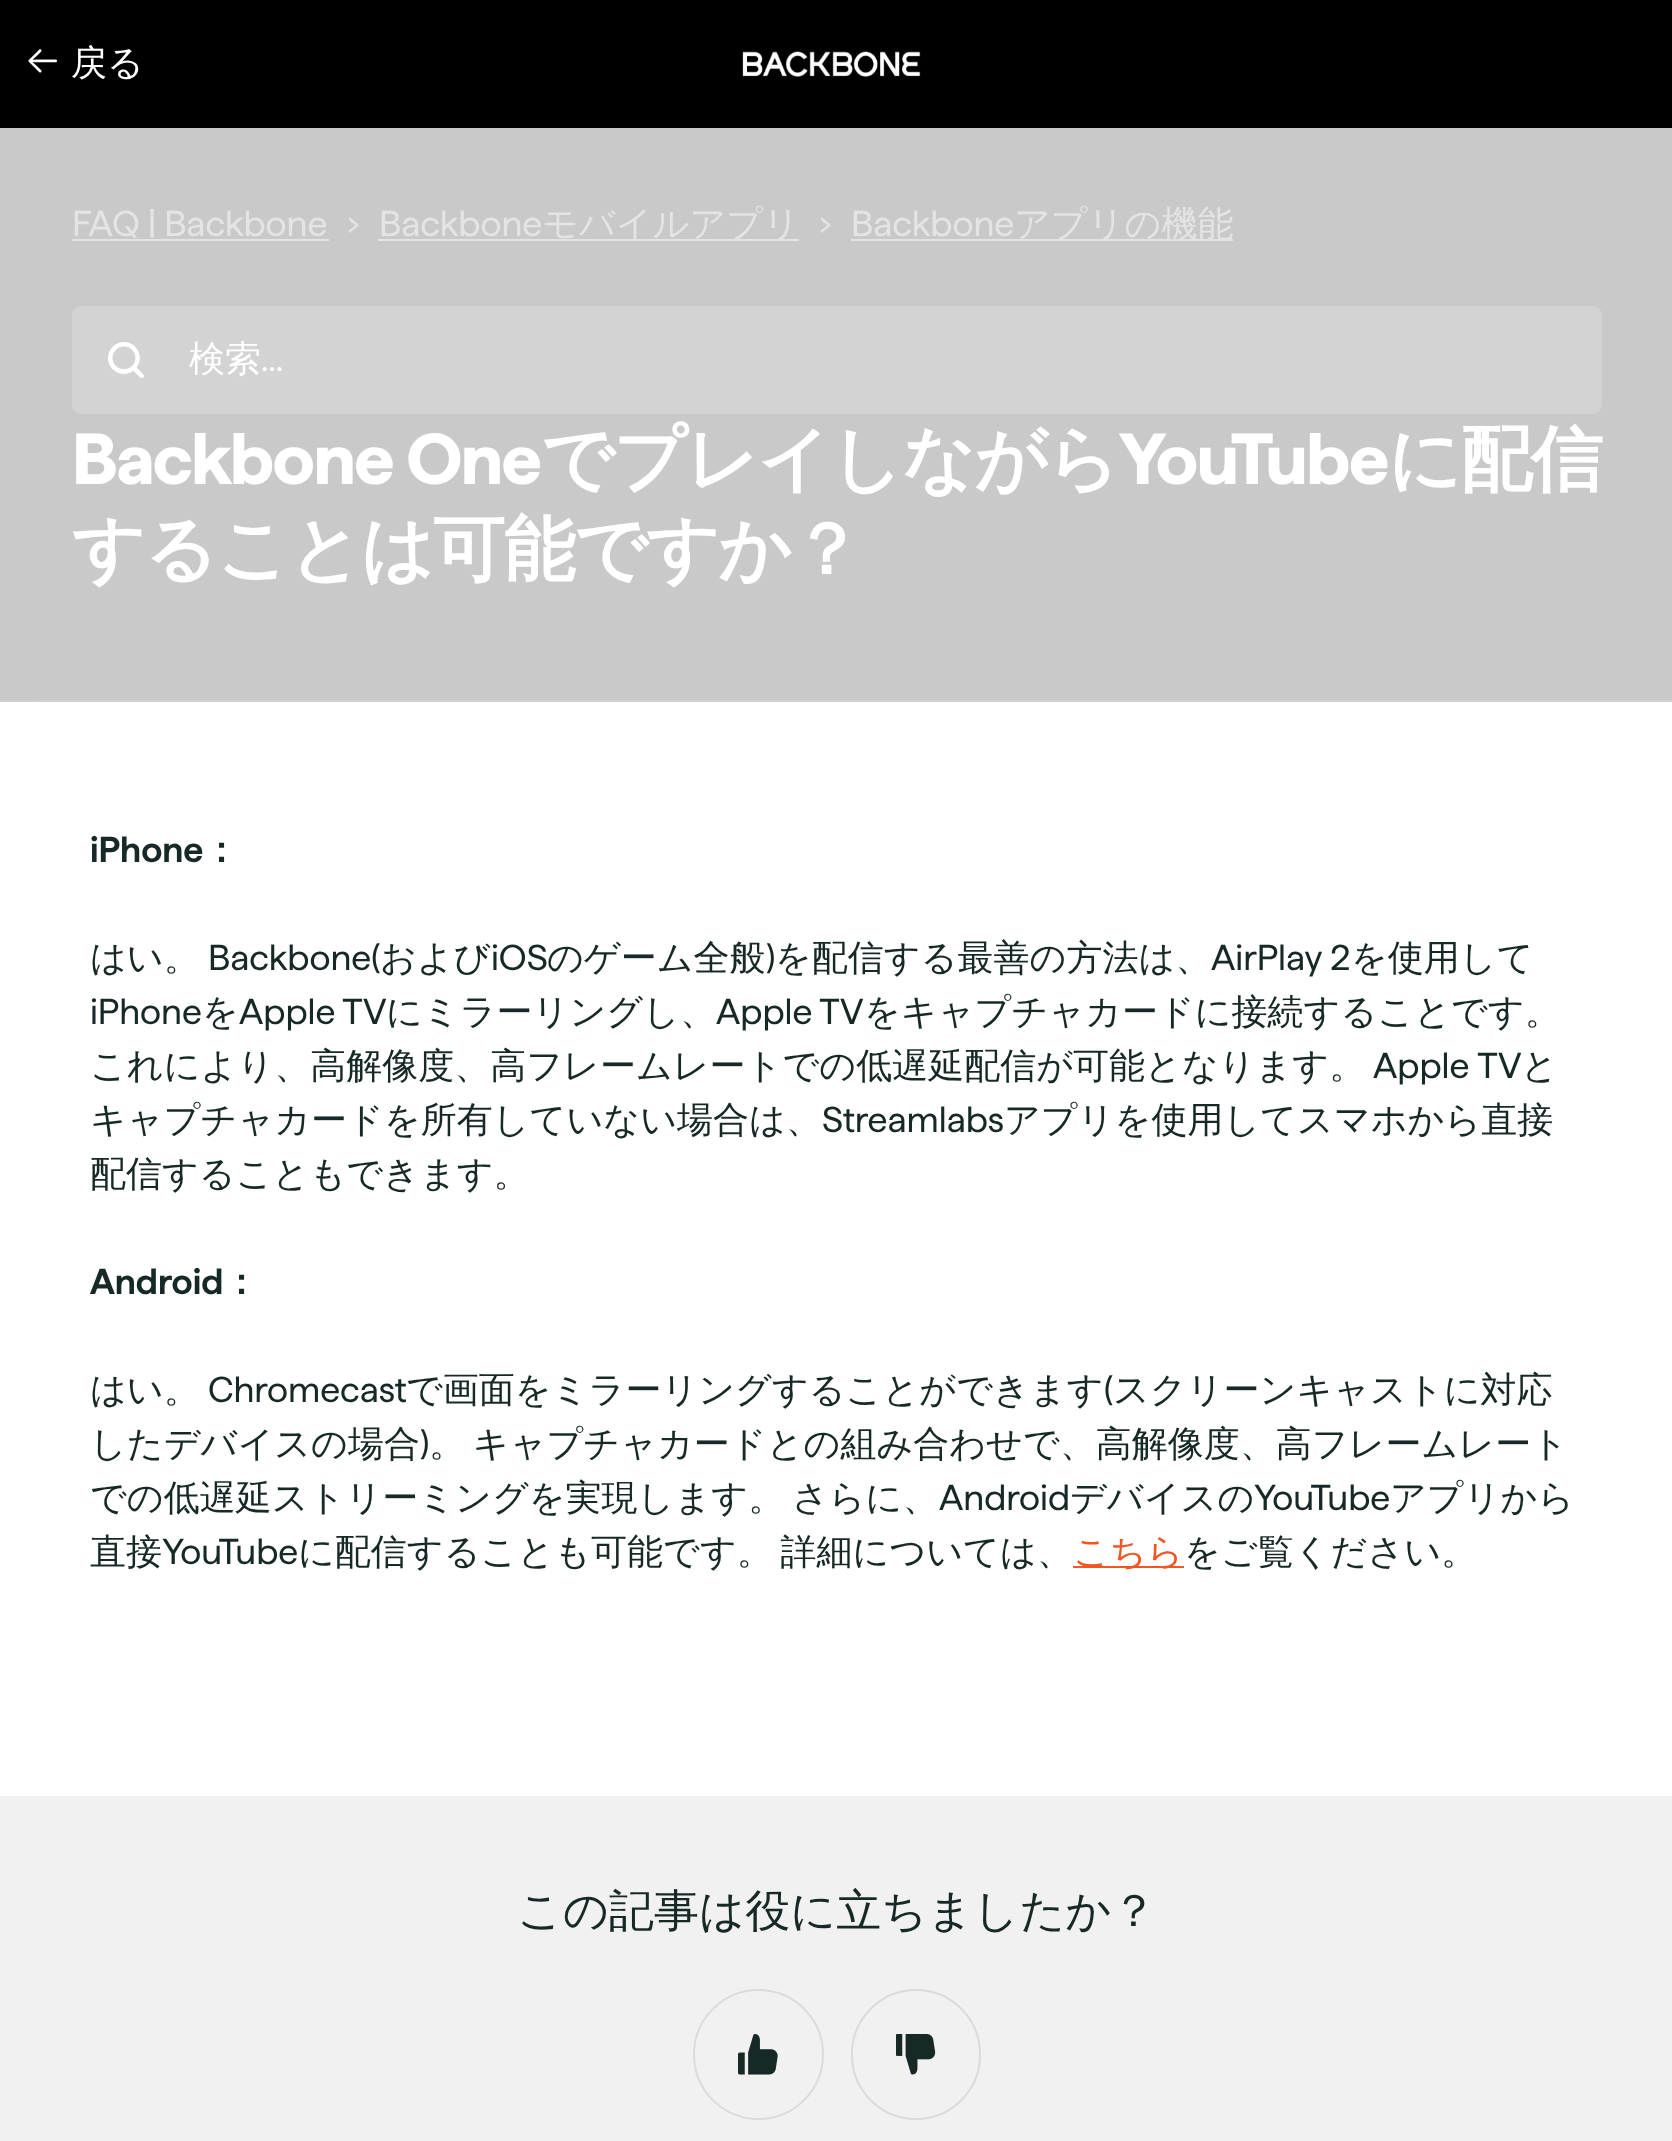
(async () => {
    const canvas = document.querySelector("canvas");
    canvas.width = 1672;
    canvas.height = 2141;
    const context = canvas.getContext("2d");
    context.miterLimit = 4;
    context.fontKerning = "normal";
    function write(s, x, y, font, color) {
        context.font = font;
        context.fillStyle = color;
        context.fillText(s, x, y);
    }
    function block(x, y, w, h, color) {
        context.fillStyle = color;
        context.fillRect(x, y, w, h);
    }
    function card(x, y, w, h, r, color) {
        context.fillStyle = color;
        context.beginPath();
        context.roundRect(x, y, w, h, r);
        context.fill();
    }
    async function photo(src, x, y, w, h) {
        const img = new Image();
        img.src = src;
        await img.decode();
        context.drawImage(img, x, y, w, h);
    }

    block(0, 0, 1672, 2141, "rgb(255, 255, 255)");
    block(0, 0, 1672, 128, "rgb(0, 0, 0)");
    await photo("media/1.png", 28, 49, 29, 24);
    write("戻る", 71, 75, "500 36px WenQuanYi Zen Hei", "rgb(255, 255, 255)");
    await photo("media/2.png", 742, 51, 179, 26);
    block(0, 128, 1672, 574, "rgb(201, 201, 201)");
    write("FAQ | Backbone", 72, 236, "36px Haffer", "rgb(228, 228, 228)");
    block(72, 239, 257, 2, "rgb(228, 228, 228)");
    write("›", 347, 236, "36px Haffer", "rgb(228, 228, 228)");
    write("Backbone", 379, 236, "36px Haffer", "rgb(228, 228, 228)");
    block(378, 239, 421, 2, "rgb(228, 228, 228)");
    write("モバイルアプリ", 542, 236, "500 36px WenQuanYi Zen Hei", "rgb(228, 228, 228)");
    write("›", 819, 236, "36px Haffer", "rgb(228, 228, 228)");
    write("Backbone", 851, 236, "36px Haffer", "rgb(228, 228, 228)");
    block(851, 239, 382, 2, "rgb(228, 228, 228)");
    write("アプリの機能", 1014, 236, "500 36px WenQuanYi Zen Hei", "rgb(228, 228, 228)");
    card(72, 306, 1530, 108, 9, "rgb(211, 211, 211)");
    await photo("media/3.png", 108, 342, 36, 36);
    write("検索", 189, 371, "500 36px WenQuanYi Zen Hei", "rgb(255, 255, 255)");
    write("…", 261, 371, "36px Haffer", "rgb(255, 255, 255)");
    context.letterSpacing = "-1.5px";
    write("Backbone One", 72, 484, "bold 72px Haffer", "rgb(255, 255, 255)");
    write("でプレイしながら", 541, 484, "bold 72px WenQuanYi Zen Hei", "rgb(255, 255, 255)");
    write("YouTube", 1119, 484, "bold 72px Haffer", "rgb(255, 255, 255)");
    write("に配信", 1388, 484, "bold 72px WenQuanYi Zen Hei", "rgb(255, 255, 255)");
    write("することは可能ですか？", 72, 574, "bold 72px WenQuanYi Zen Hei", "rgb(255, 255, 255)");
    context.fillStyle = "rgba(255, 255, 255, 0.05)";
    context.beginPath();
    context.moveTo(0, 700);
    context.lineTo(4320, 700);
    context.lineTo(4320, 889);
    context.closePath();
    context.fill();
    context.fillStyle = "rgba(255, 255, 255, 0.1)";
    context.beginPath();
    context.moveTo(0, 700);
    context.lineTo(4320, 700);
    context.lineTo(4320, 685);
    context.lineTo(0, 781);
    context.closePath();
    context.fill();
    context.letterSpacing = "0px";
    write("iPhone", 90, 862, "600 36px Haffer", "rgb(23, 41, 38)");
    write("：", 203, 862, "bold 36px WenQuanYi Zen Hei", "rgb(23, 41, 38)");
    write("はい。", 90, 970, "500 36px WenQuanYi Zen Hei", "rgb(23, 41, 38)");
    write("Backbone(", 208, 970, "36px Haffer", "rgb(23, 41, 38)");
    write("および", 380, 970, "500 36px WenQuanYi Zen Hei", "rgb(23, 41, 38)");
    write("iOS", 491, 970, "36px Haffer", "rgb(23, 41, 38)");
    write("のゲーム全般", 547, 970, "500 36px WenQuanYi Zen Hei", "rgb(23, 41, 38)");
    write(")", 766, 970, "36px Haffer", "rgb(23, 41, 38)");
    write("を配信する最善の方法は、", 775, 970, "500 36px WenQuanYi Zen Hei", "rgb(23, 41, 38)");
    write("AirPlay 2", 1211, 970, "36px Haffer", "rgb(23, 41, 38)");
    write("を使用して", 1351, 970, "500 36px WenQuanYi Zen Hei", "rgb(23, 41, 38)");
    write("iPhone", 90, 1024, "36px Haffer", "rgb(23, 41, 38)");
    write("を", 202, 1024, "500 36px WenQuanYi Zen Hei", "rgb(23, 41, 38)");
    write("Apple TV", 239, 1024, "36px Haffer", "rgb(23, 41, 38)");
    write("にミラーリングし、", 386, 1024, "500 36px WenQuanYi Zen Hei", "rgb(23, 41, 38)");
    write("Apple TV", 716, 1024, "36px Haffer", "rgb(23, 41, 38)");
    write("をキャプチャカードに接続することです。", 864, 1024, "500 36px WenQuanYi Zen Hei", "rgb(23, 41, 38)");
    write("これにより、高解像度、高フレームレートでの低遅延配信が可能となります。", 90, 1078, "500 36px WenQuanYi Zen Hei", "rgb(23, 41, 38)");
    context.wordSpacing = "1px";
    write("Apple TV", 1373, 1078, "36px Haffer", "rgb(23, 41, 38)");
    context.wordSpacing = "0px";
    write("と", 1521, 1078, "500 36px WenQuanYi Zen Hei", "rgb(23, 41, 38)");
    write("キャプチャカードを所有していない場合は、", 90, 1132, "500 36px WenQuanYi Zen Hei", "rgb(23, 41, 38)");
    write("Streamlabs", 822, 1132, "36px Haffer", "rgb(23, 41, 38)");
    write("アプリを使用してスマホから直接", 1004, 1132, "500 36px WenQuanYi Zen Hei", "rgb(23, 41, 38)");
    write("配信することもできます。", 90, 1186, "500 36px WenQuanYi Zen Hei", "rgb(23, 41, 38)");
    write("Android", 90, 1294, "600 36px Haffer", "rgb(23, 41, 38)");
    write("：", 223, 1294, "bold 36px WenQuanYi Zen Hei", "rgb(23, 41, 38)");
    write("はい。", 90, 1402, "500 36px WenQuanYi Zen Hei", "rgb(23, 41, 38)");
    write("Chromecast", 208, 1402, "36px Haffer", "rgb(23, 41, 38)");
    write("で画面をミラーリングすることができます", 406, 1402, "500 36px WenQuanYi Zen Hei", "rgb(23, 41, 38)");
    write("(", 1104, 1402, "36px Haffer", "rgb(23, 41, 38)");
    write("スクリーンキャストに対応", 1113, 1402, "500 36px WenQuanYi Zen Hei", "rgb(23, 41, 38)");
    write("したデバイスの場合", 90, 1456, "500 36px WenQuanYi Zen Hei", "rgb(23, 41, 38)");
    write(")", 420, 1456, "36px Haffer", "rgb(23, 41, 38)");
    context.wordSpacing = "-3px";
    write("。 キャプチャカードとの組み合わせで、高解像度、高フレームレート", 429, 1456, "500 36px WenQuanYi Zen Hei", "rgb(23, 41, 38)");
    write("での低遅延ストリーミングを実現します。 さらに、", 90, 1510, "500 36px WenQuanYi Zen Hei", "rgb(23, 41, 38)");
    context.wordSpacing = "0px";
    write("Android", 939, 1510, "36px Haffer", "rgb(23, 41, 38)");
    write("デバイスの", 1070, 1510, "500 36px WenQuanYi Zen Hei", "rgb(23, 41, 38)");
    write("YouTube", 1254, 1510, "36px Haffer", "rgb(23, 41, 38)");
    write("アプリから", 1390, 1510, "500 36px WenQuanYi Zen Hei", "rgb(23, 41, 38)");
    write("直接", 90, 1564, "500 36px WenQuanYi Zen Hei", "rgb(23, 41, 38)");
    write("YouTube", 162, 1564, "36px Haffer", "rgb(23, 41, 38)");
    context.wordSpacing = "-3px";
    write("に配信することも可能です。 詳細については、", 298, 1564, "500 36px WenQuanYi Zen Hei", "rgb(23, 41, 38)");
    block(1073, 1566, 111, 2, "rgb(241, 86, 35)");
    context.wordSpacing = "0px";
    write("こちら", 1073, 1564, "500 36px WenQuanYi Zen Hei", "rgb(241, 86, 35)");
    write("をご覧ください。", 1184, 1564, "500 36px WenQuanYi Zen Hei", "rgb(23, 41, 38)");
    block(0, 1796, 1672, 345, "rgb(241, 241, 241)");
    write("この記事は役に立ちましたか？", 517, 1926, "500 45px WenQuanYi Zen Hei", "rgb(23, 41, 38)");
    await photo("media/4.png", 738, 2034, 40, 41);
    context.beginPath();
    context.arc(758.5, 2054.5, 64.5, 0, Math.PI * 2);
    context.strokeStyle = "rgb(218, 220, 220)";
    context.lineWidth = 2;
    context.stroke();
    await photo("media/5.png", 896, 2034, 40, 41);
    context.beginPath();
    context.roundRect(852, 1990, 128, 129, 64);
    context.stroke();
})();
